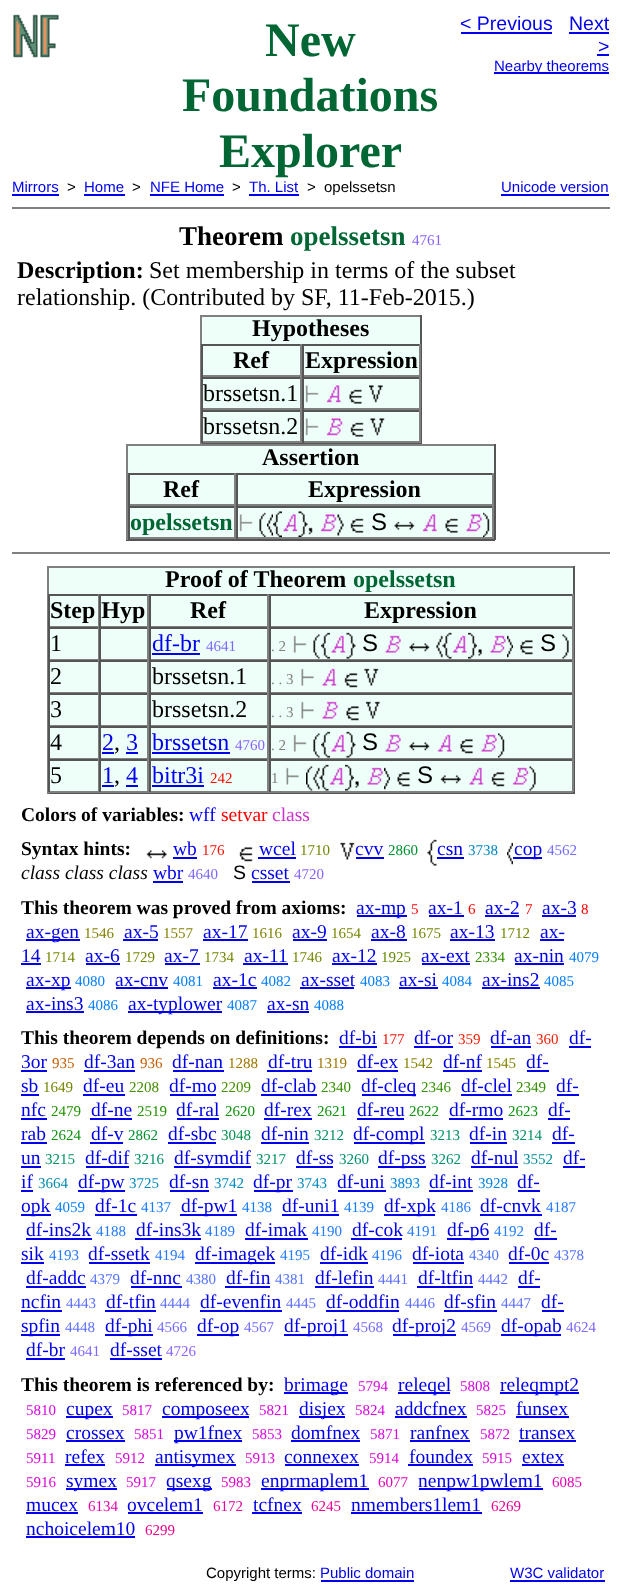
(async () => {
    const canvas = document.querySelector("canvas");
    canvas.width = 620;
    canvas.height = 1596;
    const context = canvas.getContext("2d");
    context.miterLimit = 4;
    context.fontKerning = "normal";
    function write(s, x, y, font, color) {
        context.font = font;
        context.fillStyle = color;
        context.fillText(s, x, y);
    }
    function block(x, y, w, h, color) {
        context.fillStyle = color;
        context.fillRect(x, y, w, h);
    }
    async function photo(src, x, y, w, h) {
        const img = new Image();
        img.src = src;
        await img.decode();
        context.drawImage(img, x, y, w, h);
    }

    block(0, 0, 620, 1596, "rgb(255, 255, 255)");
    await photo("media/1.png", 13, 14, 46, 44);
    write("New", 265, 56, "bold 48px Liberation Serif", "rgb(0, 102, 51)");
    write("Foundations", 182, 111, "bold 48px Liberation Serif", "rgb(0, 102, 51)");
    write("Explorer", 219, 167, "bold 48px Liberation Serif", "rgb(0, 102, 51)");
    write("< Previous", 460, 30, "19.5px Liberation Sans", "rgb(0, 0, 238)");
    block(461, 32, 91, 2, "rgb(0, 0, 238)");
    write("Next", 569, 30, "19.5px Liberation Sans", "rgb(0, 0, 238)");
    block(569, 32, 40, 2, "rgb(0, 0, 238)");
    write(">", 598, 53, "19.5px Liberation Sans", "rgb(0, 0, 238)");
    block(597, 54, 12, 2, "rgb(0, 0, 238)");
    block(494, 72, 115, 2, "rgb(0, 0, 238)");
    write("Nearby theorems", 494, 71, "15px Liberation Sans", "rgb(0, 0, 238)");
    write("Mirrors", 12, 192, "15px Liberation Sans", "rgb(0, 0, 238)");
    block(12, 194, 47, 2, "rgb(0, 0, 238)");
    write(">", 67, 192, "15px Liberation Sans", "rgb(0, 0, 0)");
    write("Home", 84, 192, "15px Liberation Sans", "rgb(0, 0, 238)");
    block(84, 194, 41, 2, "rgb(0, 0, 238)");
    write(">", 132, 192, "15px Liberation Sans", "rgb(0, 0, 0)");
    write("NFE Home", 150, 192, "15px Liberation Sans", "rgb(0, 0, 238)");
    block(150, 194, 74, 2, "rgb(0, 0, 238)");
    write(">", 232, 192, "15px Liberation Sans", "rgb(0, 0, 0)");
    write("Th. List", 249, 192, "15px Liberation Sans", "rgb(0, 0, 238)");
    block(249, 194, 50, 2, "rgb(0, 0, 238)");
    write(">", 307, 192, "15px Liberation Sans", "rgb(0, 0, 0)");
    write("opelssetsn", 324, 192, "15px Liberation Sans", "rgb(0, 0, 0)");
    write("Unicode version", 501, 192, "15px Liberation Sans", "rgb(0, 0, 238)");
    block(501, 194, 108, 2, "rgb(0, 0, 238)");
    block(12, 207, 598, 2, "rgb(128, 128, 128)");
    write("Theorem", 179, 245, "bold 27px Liberation Serif", "rgb(0, 0, 0)");
    write("opelssetsn", 290, 245, "bold 27px Liberation Serif", "rgb(0, 102, 51)");
    write("4761", 412, 245, "15px Liberation Serif", "rgb(137, 98, 255)");
    write("Description:", 17, 278, "bold 24px Liberation Serif", "rgb(0, 0, 0)");
    write("Set membership in terms of the subset", 149, 278, "24px Liberation Serif", "rgb(0, 0, 0)");
    write("relationship. (Contributed by SF, 11-Feb-2015.)", 17, 305, "24px Liberation Serif", "rgb(0, 0, 0)");
    block(202, 317, 218, 124, "rgb(238, 255, 250)");
    block(200, 315, 222, 2, "rgb(128, 128, 128)");
    block(420, 315, 2, 129, "rgb(85, 85, 85)");
    block(200, 443, 222, 1, "rgb(85, 85, 85)");
    block(200, 315, 2, 129, "rgb(128, 128, 128)");
    write("Hypotheses", 252, 336, "bold 24px Liberation Serif", "rgb(0, 0, 0)");
    block(201, 344, 219, 2, "rgb(85, 85, 85)");
    block(300, 344, 2, 33, "rgb(128, 128, 128)");
    block(201, 375, 101, 2, "rgb(128, 128, 128)");
    block(201, 344, 2, 33, "rgb(85, 85, 85)");
    write("Ref", 233, 368, "bold 24px Liberation Serif", "rgb(0, 0, 0)");
    block(419, 344, 2, 33, "rgb(128, 128, 128)");
    block(302, 375, 118, 2, "rgb(128, 128, 128)");
    block(302, 344, 2, 33, "rgb(85, 85, 85)");
    write("Expression", 305, 368, "bold 24px Liberation Serif", "rgb(0, 0, 0)");
    block(201, 377, 219, 2, "rgb(85, 85, 85)");
    block(300, 377, 2, 33, "rgb(128, 128, 128)");
    block(201, 408, 101, 2, "rgb(128, 128, 128)");
    block(201, 377, 2, 33, "rgb(85, 85, 85)");
    write("brssetsn.1", 203, 401, "24px Liberation Serif", "rgb(0, 0, 0)");
    block(419, 377, 2, 33, "rgb(128, 128, 128)");
    block(302, 408, 118, 2, "rgb(128, 128, 128)");
    block(302, 377, 2, 33, "rgb(85, 85, 85)");
    await photo("media/2.png", 305, 385, 14, 18);
    await photo("media/3.png", 326, 385, 15, 18);
    await photo("media/4.png", 349, 389, 13, 15);
    await photo("media/5.png", 369, 385, 14, 18);
    block(201, 410, 219, 2, "rgb(85, 85, 85)");
    block(300, 410, 2, 33, "rgb(128, 128, 128)");
    block(201, 441, 101, 2, "rgb(128, 128, 128)");
    block(201, 410, 2, 33, "rgb(85, 85, 85)");
    write("brssetsn.2", 203, 434, "24px Liberation Serif", "rgb(0, 0, 0)");
    block(419, 410, 2, 33, "rgb(128, 128, 128)");
    block(302, 441, 118, 2, "rgb(128, 128, 128)");
    block(302, 410, 2, 33, "rgb(85, 85, 85)");
    await photo("media/2.png", 305, 418, 14, 18);
    await photo("media/6.png", 326, 418, 17, 18);
    await photo("media/7.png", 350, 422, 14, 15);
    await photo("media/8.png", 370, 418, 15, 18);
    block(128, 446, 366, 91, "rgb(238, 255, 250)");
    block(126, 444, 369, 2, "rgb(128, 128, 128)");
    block(494, 444, 2, 96, "rgb(85, 85, 85)");
    block(126, 539, 369, 2, "rgb(85, 85, 85)");
    block(126, 444, 2, 96, "rgb(128, 128, 128)");
    write("Assertion", 262, 465, "bold 24px Liberation Serif", "rgb(0, 0, 0)");
    block(128, 473, 366, 2, "rgb(85, 85, 85)");
    block(234, 473, 2, 33, "rgb(128, 128, 128)");
    block(128, 504, 108, 2, "rgb(128, 128, 128)");
    block(128, 473, 2, 33, "rgb(85, 85, 85)");
    write("Ref", 163, 497, "bold 24px Liberation Serif", "rgb(0, 0, 0)");
    block(492, 473, 2, 33, "rgb(128, 128, 128)");
    block(236, 504, 258, 2, "rgb(128, 128, 128)");
    block(236, 473, 2, 33, "rgb(85, 85, 85)");
    write("Expression", 308, 497, "bold 24px Liberation Serif", "rgb(0, 0, 0)");
    block(128, 506, 366, 2, "rgb(85, 85, 85)");
    block(234, 506, 2, 33, "rgb(128, 128, 128)");
    block(128, 537, 108, 2, "rgb(128, 128, 128)");
    block(128, 506, 2, 33, "rgb(85, 85, 85)");
    write("opelssetsn", 130, 530, "bold 24px Liberation Serif", "rgb(0, 102, 51)");
    block(492, 506, 2, 33, "rgb(128, 128, 128)");
    block(236, 537, 258, 2, "rgb(128, 128, 128)");
    block(236, 506, 2, 33, "rgb(85, 85, 85)");
    await photo("media/2.png", 239, 514, 14, 18);
    await photo("media/9.png", 259, 512, 7, 25);
    await photo("media/10.png", 267, 514, 6, 22);
    await photo("media/11.png", 273, 511, 9, 26);
    await photo("media/12.png", 283, 514, 15, 18);
    await photo("media/13.png", 298, 511, 10, 26);
    await photo("media/6.png", 320, 514, 17, 18);
    await photo("media/14.png", 337, 514, 7, 22);
    await photo("media/7.png", 350, 518, 14, 15);
    write("S", 371, 530, "24px Liberation Sans", "rgb(0, 0, 0)");
    await photo("media/15.png", 394, 521, 21, 9);
    await photo("media/16.png", 422, 514, 15, 18);
    await photo("media/4.png", 445, 518, 13, 15);
    await photo("media/17.png", 466, 514, 16, 18);
    await photo("media/18.png", 483, 512, 7, 25);
    await photo("media/19.png", 308, 527, 5, 8);
    block(12, 552, 598, 2, "rgb(128, 128, 128)");
    block(49, 568, 524, 223, "rgb(238, 255, 250)");
    block(47, 566, 528, 2, "rgb(128, 128, 128)");
    block(573, 566, 2, 228, "rgb(85, 85, 85)");
    block(47, 792, 528, 2, "rgb(85, 85, 85)");
    block(47, 566, 2, 228, "rgb(128, 128, 128)");
    write("Proof of Theorem", 165, 587, "bold 24px Liberation Serif", "rgb(0, 0, 0)");
    write("opelssetsn", 353, 587, "bold 24px Liberation Serif", "rgb(0, 102, 51)");
    block(48, 594, 525, 2, "rgb(85, 85, 85)");
    block(147, 594, 2, 33, "rgb(128, 128, 128)");
    block(99, 626, 50, 1, "rgb(128, 128, 128)");
    block(99, 594, 2, 33, "rgb(85, 85, 85)");
    block(267, 594, 2, 33, "rgb(128, 128, 128)");
    block(149, 626, 120, 1, "rgb(128, 128, 128)");
    block(149, 594, 2, 33, "rgb(85, 85, 85)");
    write("Ref", 190, 618, "bold 24px Liberation Serif", "rgb(0, 0, 0)");
    block(572, 594, 2, 33, "rgb(128, 128, 128)");
    block(269, 626, 304, 1, "rgb(128, 128, 128)");
    block(269, 594, 2, 33, "rgb(85, 85, 85)");
    write("Expression", 364, 618, "bold 24px Liberation Serif", "rgb(0, 0, 0)");
    block(98, 594, 1, 33, "rgb(128, 128, 128)");
    block(48, 626, 51, 1, "rgb(128, 128, 128)");
    block(48, 594, 2, 33, "rgb(85, 85, 85)");
    write("Step Hyp", 50, 618, "bold 24px Liberation Serif", "rgb(0, 0, 0)");
    block(48, 627, 525, 2, "rgb(85, 85, 85)");
    block(98, 627, 1, 33, "rgb(128, 128, 128)");
    block(48, 659, 51, 1, "rgb(128, 128, 128)");
    block(48, 627, 2, 33, "rgb(85, 85, 85)");
    write("1", 50, 651, "24px Liberation Serif", "rgb(0, 0, 0)");
    block(147, 627, 2, 33, "rgb(128, 128, 128)");
    block(99, 659, 50, 1, "rgb(128, 128, 128)");
    block(99, 627, 2, 33, "rgb(85, 85, 85)");
    block(267, 627, 2, 33, "rgb(128, 128, 128)");
    block(149, 659, 120, 1, "rgb(128, 128, 128)");
    block(149, 627, 2, 33, "rgb(85, 85, 85)");
    write("df-br", 152, 651, "24px Liberation Serif", "rgb(0, 0, 238)");
    block(152, 653, 48, 2, "rgb(0, 0, 238)");
    write("4641", 206, 651, "15px Liberation Serif", "rgb(123, 104, 255)");
    block(572, 627, 2, 33, "rgb(128, 128, 128)");
    block(269, 659, 304, 1, "rgb(128, 128, 128)");
    block(269, 627, 2, 33, "rgb(85, 85, 85)");
    write(". 2", 271, 651, "15px Liberation Serif", "rgb(128, 128, 128)");
    await photo("media/20.png", 293, 635, 14, 18);
    await photo("media/21.png", 313, 634, 7, 25);
    await photo("media/22.png", 321, 632, 9, 27);
    await photo("media/23.png", 331, 635, 15, 18);
    await photo("media/24.png", 346, 632, 10, 27);
    write("S", 362, 651, "24px Liberation Sans", "rgb(0, 0, 0)");
    await photo("media/25.png", 385, 635, 16, 18);
    await photo("media/26.png", 409, 643, 21, 9);
    await photo("media/27.png", 436, 635, 7, 23);
    await photo("media/28.png", 442, 632, 10, 27);
    await photo("media/29.png", 452, 635, 15, 18);
    await photo("media/30.png", 468, 632, 9, 27);
    await photo("media/31.png", 478, 649, 4, 7);
    await photo("media/25.png", 490, 635, 16, 18);
    await photo("media/32.png", 507, 635, 6, 23);
    await photo("media/33.png", 520, 640, 13, 15);
    write("S", 540, 651, "24px Liberation Sans", "rgb(0, 0, 0)");
    await photo("media/34.png", 562, 634, 7, 25);
    block(48, 660, 525, 2, "rgb(85, 85, 85)");
    block(98, 660, 1, 33, "rgb(128, 128, 128)");
    block(48, 692, 51, 1, "rgb(128, 128, 128)");
    block(48, 660, 2, 33, "rgb(85, 85, 85)");
    write("2", 50, 684, "24px Liberation Serif", "rgb(0, 0, 0)");
    block(147, 660, 2, 33, "rgb(128, 128, 128)");
    block(99, 692, 50, 1, "rgb(128, 128, 128)");
    block(99, 660, 2, 33, "rgb(85, 85, 85)");
    block(267, 660, 2, 33, "rgb(128, 128, 128)");
    block(149, 692, 120, 1, "rgb(128, 128, 128)");
    block(149, 660, 2, 33, "rgb(85, 85, 85)");
    write("brssetsn.1", 152, 684, "24px Liberation Serif", "rgb(0, 0, 0)");
    block(572, 660, 2, 33, "rgb(128, 128, 128)");
    block(269, 692, 304, 1, "rgb(128, 128, 128)");
    block(269, 660, 2, 33, "rgb(85, 85, 85)");
    write(". . 3", 271, 684, "15px Liberation Serif", "rgb(128, 128, 128)");
    await photo("media/35.png", 301, 668, 13, 18);
    await photo("media/23.png", 322, 668, 15, 18);
    await photo("media/36.png", 344, 673, 14, 15);
    await photo("media/37.png", 364, 668, 15, 18);
    block(48, 693, 525, 2, "rgb(85, 85, 85)");
    block(98, 693, 1, 33, "rgb(128, 128, 128)");
    block(48, 725, 51, 1, "rgb(128, 128, 128)");
    block(48, 693, 2, 33, "rgb(85, 85, 85)");
    write("3", 50, 717, "24px Liberation Serif", "rgb(0, 0, 0)");
    block(147, 693, 2, 33, "rgb(128, 128, 128)");
    block(99, 725, 50, 1, "rgb(128, 128, 128)");
    block(99, 693, 2, 33, "rgb(85, 85, 85)");
    block(267, 693, 2, 33, "rgb(128, 128, 128)");
    block(149, 725, 120, 1, "rgb(128, 128, 128)");
    block(149, 693, 2, 33, "rgb(85, 85, 85)");
    write("brssetsn.2", 152, 717, "24px Liberation Serif", "rgb(0, 0, 0)");
    block(572, 693, 2, 33, "rgb(128, 128, 128)");
    block(269, 725, 304, 1, "rgb(128, 128, 128)");
    block(269, 693, 2, 33, "rgb(85, 85, 85)");
    write(". . 3", 271, 717, "15px Liberation Serif", "rgb(128, 128, 128)");
    await photo("media/35.png", 301, 701, 13, 18);
    await photo("media/25.png", 322, 701, 16, 18);
    await photo("media/38.png", 346, 706, 13, 15);
    await photo("media/39.png", 366, 701, 14, 18);
    block(48, 726, 525, 2, "rgb(85, 85, 85)");
    block(98, 726, 1, 33, "rgb(128, 128, 128)");
    block(48, 758, 51, 1, "rgb(128, 128, 128)");
    block(48, 726, 2, 33, "rgb(85, 85, 85)");
    write("4", 50, 750, "24px Liberation Serif", "rgb(0, 0, 0)");
    block(147, 726, 2, 33, "rgb(128, 128, 128)");
    block(99, 758, 50, 1, "rgb(128, 128, 128)");
    block(99, 726, 2, 33, "rgb(85, 85, 85)");
    write("2", 102, 750, "24px Liberation Serif", "rgb(0, 0, 238)");
    block(102, 752, 12, 2, "rgb(0, 0, 238)");
    write(",", 114, 750, "24px Liberation Serif", "rgb(0, 0, 0)");
    write("3", 126, 750, "24px Liberation Serif", "rgb(0, 0, 238)");
    block(126, 752, 12, 2, "rgb(0, 0, 238)");
    block(267, 726, 2, 33, "rgb(128, 128, 128)");
    block(149, 758, 120, 1, "rgb(128, 128, 128)");
    block(149, 726, 2, 33, "rgb(85, 85, 85)");
    write("brssetsn", 152, 750, "24px Liberation Serif", "rgb(0, 0, 238)");
    block(152, 752, 78, 2, "rgb(0, 0, 238)");
    write("4760", 235, 750, "15px Liberation Serif", "rgb(137, 98, 255)");
    block(572, 726, 2, 33, "rgb(128, 128, 128)");
    block(269, 758, 304, 1, "rgb(128, 128, 128)");
    block(269, 726, 2, 33, "rgb(85, 85, 85)");
    write(". 2", 271, 750, "15px Liberation Serif", "rgb(128, 128, 128)");
    await photo("media/20.png", 293, 734, 14, 18);
    await photo("media/21.png", 313, 733, 7, 25);
    await photo("media/22.png", 321, 731, 9, 27);
    await photo("media/23.png", 331, 734, 15, 18);
    await photo("media/24.png", 346, 731, 10, 27);
    write("S", 362, 750, "24px Liberation Sans", "rgb(0, 0, 0)");
    await photo("media/25.png", 385, 734, 16, 18);
    await photo("media/26.png", 409, 742, 21, 9);
    await photo("media/40.png", 437, 734, 15, 18);
    await photo("media/38.png", 460, 739, 13, 15);
    await photo("media/25.png", 481, 734, 16, 18);
    await photo("media/41.png", 498, 733, 7, 25);
    block(48, 759, 525, 2, "rgb(85, 85, 85)");
    block(98, 759, 1, 33, "rgb(128, 128, 128)");
    block(48, 791, 51, 2, "rgb(128, 128, 128)");
    block(48, 759, 2, 33, "rgb(85, 85, 85)");
    write("5", 50, 783, "24px Liberation Serif", "rgb(0, 0, 0)");
    block(147, 759, 2, 33, "rgb(128, 128, 128)");
    block(99, 791, 50, 2, "rgb(128, 128, 128)");
    block(99, 759, 2, 33, "rgb(85, 85, 85)");
    write("1", 102, 783, "24px Liberation Serif", "rgb(0, 0, 238)");
    block(102, 785, 12, 2, "rgb(0, 0, 238)");
    write(",", 114, 783, "24px Liberation Serif", "rgb(0, 0, 0)");
    write("4", 126, 783, "24px Liberation Serif", "rgb(0, 0, 238)");
    block(126, 785, 12, 2, "rgb(0, 0, 238)");
    block(267, 759, 2, 33, "rgb(128, 128, 128)");
    block(149, 791, 120, 2, "rgb(128, 128, 128)");
    block(149, 759, 2, 33, "rgb(85, 85, 85)");
    write("bitr3i", 152, 783, "24px Liberation Serif", "rgb(0, 0, 238)");
    block(152, 785, 52, 2, "rgb(0, 0, 238)");
    write("242", 210, 783, "15px Liberation Serif", "rgb(246, 14, 0)");
    block(572, 759, 2, 33, "rgb(128, 128, 128)");
    block(269, 791, 304, 2, "rgb(128, 128, 128)");
    block(269, 759, 2, 33, "rgb(85, 85, 85)");
    write("1", 271, 783, "15px Liberation Serif", "rgb(128, 128, 128)");
    await photo("media/35.png", 286, 767, 13, 18);
    await photo("media/42.png", 306, 766, 7, 25);
    await photo("media/43.png", 313, 767, 7, 23);
    await photo("media/44.png", 319, 764, 10, 27);
    await photo("media/29.png", 329, 767, 15, 18);
    await photo("media/30.png", 345, 764, 9, 27);
    await photo("media/31.png", 355, 781, 4, 7);
    await photo("media/25.png", 367, 767, 16, 18);
    await photo("media/45.png", 384, 767, 6, 23);
    await photo("media/38.png", 397, 772, 13, 15);
    write("S", 417, 783, "24px Liberation Sans", "rgb(0, 0, 0)");
    await photo("media/46.png", 440, 775, 21, 9);
    await photo("media/23.png", 469, 767, 15, 18);
    await photo("media/36.png", 491, 772, 14, 15);
    await photo("media/47.png", 512, 767, 17, 18);
    await photo("media/34.png", 529, 766, 7, 25);
    write("Colors of variables:", 21, 821, "bold 19.5px Liberation Serif", "rgb(0, 0, 0)");
    write("wff", 189, 821, "19.5px Liberation Serif", "rgb(0, 0, 255)");
    write("setvar", 221, 821, "19.5px Liberation Serif", "rgb(255, 0, 0)");
    write("class", 272, 821, "19.5px Liberation Serif", "rgb(204, 51, 204)");
    write("Syntax hints:", 21, 855, "bold 19.5px Liberation Serif", "rgb(0, 0, 0)");
    await photo("media/48.png", 146, 850, 21, 9);
    write("wb", 173, 855, "19.5px Liberation Serif", "rgb(0, 0, 238)");
    block(173, 857, 24, 2, "rgb(0, 0, 238)");
    write("176", 202, 855, "15px Liberation Serif", "rgb(246, 14, 0)");
    await photo("media/49.png", 239, 847, 14, 15);
    write("wcel", 259, 855, "19.5px Liberation Serif", "rgb(0, 0, 238)");
    block(258, 857, 38, 2, "rgb(0, 0, 238)");
    write("1710", 300, 855, "15px Liberation Serif", "rgb(117, 133, 0)");
    await photo("media/50.png", 340, 842, 15, 18);
    write("cvv", 355, 855, "19.5px Liberation Serif", "rgb(0, 0, 238)");
    block(356, 857, 28, 2, "rgb(0, 0, 238)");
    write("2860", 388, 855, "15px Liberation Serif", "rgb(0, 146, 46)");
    await photo("media/51.png", 427, 839, 10, 27);
    write("csn", 437, 855, "19.5px Liberation Serif", "rgb(0, 0, 238)");
    block(437, 857, 27, 2, "rgb(0, 0, 238)");
    write("3738", 468, 855, "15px Liberation Serif", "rgb(0, 136, 191)");
    await photo("media/52.png", 507, 842, 6, 23);
    block(513, 857, 29, 2, "rgb(0, 0, 238)");
    write("cop", 514, 855, "19.5px Liberation Serif", "rgb(0, 0, 238)");
    write("4562", 547, 855, "15px Liberation Serif", "rgb(113, 107, 255)");
    write("class class class", 21, 879, "italic 19.5px Liberation Serif", "rgb(0, 0, 0)");
    write("wbr", 153, 879, "19.5px Liberation Serif", "rgb(0, 0, 238)");
    block(153, 881, 30, 2, "rgb(0, 0, 238)");
    write("4640", 188, 879, "15px Liberation Serif", "rgb(123, 104, 255)");
    write("S", 233, 879, "19.5px Liberation Sans", "rgb(0, 0, 0)");
    write("csset", 251, 879, "19.5px Liberation Serif", "rgb(0, 0, 238)");
    block(252, 881, 38, 2, "rgb(0, 0, 238)");
    write("4720", 294, 879, "15px Liberation Serif", "rgb(137, 98, 255)");
    write("This theorem was proved from axioms:", 21, 914, "bold 19.5px Liberation Serif", "rgb(0, 0, 0)");
    block(357, 915, 50, 2, "rgb(0, 0, 238)");
    write("ax-mp", 356, 914, "19.5px Liberation Serif", "rgb(0, 0, 238)");
    write("5", 411, 914, "15px Liberation Serif", "rgb(255, 0, 0)");
    write("ax-1", 428, 914, "19.5px Liberation Serif", "rgb(0, 0, 238)");
    block(429, 915, 35, 2, "rgb(0, 0, 238)");
    write("6", 468, 914, "15px Liberation Serif", "rgb(255, 0, 0)");
    write("ax-2", 485, 914, "19.5px Liberation Serif", "rgb(0, 0, 238)");
    block(485, 915, 34, 2, "rgb(0, 0, 238)");
    write("7", 525, 914, "15px Liberation Serif", "rgb(255, 0, 0)");
    write("ax-3", 542, 914, "19.5px Liberation Serif", "rgb(0, 0, 238)");
    block(542, 915, 34, 2, "rgb(0, 0, 238)");
    write("8", 581, 914, "15px Liberation Serif", "rgb(255, 0, 0)");
    block(26, 939, 54, 2, "rgb(0, 0, 238)");
    write("ax-gen", 26, 938, "19.5px Liberation Serif", "rgb(0, 0, 238)");
    write("1546", 84, 938, "15px Liberation Serif", "rgb(131, 129, 0)");
    write("ax-5", 124, 938, "19.5px Liberation Serif", "rgb(0, 0, 238)");
    block(123, 939, 35, 2, "rgb(0, 0, 238)");
    write("1557", 163, 938, "15px Liberation Serif", "rgb(131, 129, 0)");
    write("ax-17", 203, 938, "19.5px Liberation Serif", "rgb(0, 0, 238)");
    block(203, 939, 45, 2, "rgb(0, 0, 238)");
    write("1616", 252, 938, "15px Liberation Serif", "rgb(124, 131, 0)");
    write("ax-9", 292, 938, "19.5px Liberation Serif", "rgb(0, 0, 238)");
    block(293, 939, 34, 2, "rgb(0, 0, 238)");
    write("1654", 331, 938, "15px Liberation Serif", "rgb(117, 133, 0)");
    write("ax-8", 371, 938, "19.5px Liberation Serif", "rgb(0, 0, 238)");
    block(371, 939, 36, 2, "rgb(0, 0, 238)");
    write("1675", 411, 938, "15px Liberation Serif", "rgb(117, 133, 0)");
    write("ax-13", 450, 938, "19.5px Liberation Serif", "rgb(0, 0, 238)");
    block(450, 939, 45, 2, "rgb(0, 0, 238)");
    write("1712", 500, 938, "15px Liberation Serif", "rgb(117, 133, 0)");
    write("ax-", 540, 938, "19.5px Liberation Serif", "rgb(0, 0, 238)");
    block(540, 939, 24, 2, "rgb(0, 0, 238)");
    write("14", 21, 962, "19.5px Liberation Serif", "rgb(0, 0, 238)");
    block(21, 963, 20, 2, "rgb(0, 0, 238)");
    write("1714", 45, 962, "15px Liberation Serif", "rgb(117, 133, 0)");
    write("ax-6", 85, 962, "19.5px Liberation Serif", "rgb(0, 0, 238)");
    block(86, 963, 34, 2, "rgb(0, 0, 238)");
    write("1729", 125, 962, "15px Liberation Serif", "rgb(117, 133, 0)");
    write("ax-7", 164, 962, "19.5px Liberation Serif", "rgb(0, 0, 238)");
    block(165, 963, 35, 2, "rgb(0, 0, 238)");
    write("1734", 204, 962, "15px Liberation Serif", "rgb(117, 133, 0)");
    write("ax-11", 244, 962, "19.5px Liberation Serif", "rgb(0, 0, 238)");
    block(243, 963, 45, 2, "rgb(0, 0, 238)");
    write("1746", 292, 962, "15px Liberation Serif", "rgb(117, 133, 0)");
    write("ax-12", 332, 962, "19.5px Liberation Serif", "rgb(0, 0, 238)");
    block(332, 963, 45, 2, "rgb(0, 0, 238)");
    write("1925", 381, 962, "15px Liberation Serif", "rgb(98, 138, 0)");
    write("ax-ext", 421, 962, "19.5px Liberation Serif", "rgb(0, 0, 238)");
    block(422, 963, 48, 2, "rgb(0, 0, 238)");
    write("2334", 475, 962, "15px Liberation Serif", "rgb(50, 144, 0)");
    write("ax-nin", 514, 962, "19.5px Liberation Serif", "rgb(0, 0, 238)");
    block(515, 963, 49, 2, "rgb(0, 0, 238)");
    write("4079", 569, 962, "15px Liberation Serif", "rgb(3, 126, 255)");
    block(26, 987, 45, 2, "rgb(0, 0, 238)");
    write("ax-xp", 26, 986, "19.5px Liberation Serif", "rgb(0, 0, 238)");
    write("4080", 75, 986, "15px Liberation Serif", "rgb(3, 126, 255)");
    write("ax-cnv", 115, 986, "19.5px Liberation Serif", "rgb(0, 0, 238)");
    block(116, 987, 52, 2, "rgb(0, 0, 238)");
    write("4081", 173, 986, "15px Liberation Serif", "rgb(3, 126, 255)");
    write("ax-1c", 213, 986, "19.5px Liberation Serif", "rgb(0, 0, 238)");
    block(213, 987, 44, 2, "rgb(0, 0, 238)");
    write("4082", 261, 986, "15px Liberation Serif", "rgb(3, 126, 255)");
    write("ax-sset", 301, 986, "19.5px Liberation Serif", "rgb(0, 0, 238)");
    block(300, 987, 54, 2, "rgb(0, 0, 238)");
    write("4083", 360, 986, "15px Liberation Serif", "rgb(3, 126, 255)");
    write("ax-si", 399, 986, "19.5px Liberation Serif", "rgb(0, 0, 238)");
    block(399, 987, 39, 2, "rgb(0, 0, 238)");
    write("4084", 442, 986, "15px Liberation Serif", "rgb(3, 126, 255)");
    write("ax-ins2", 482, 986, "19.5px Liberation Serif", "rgb(0, 0, 238)");
    block(482, 987, 58, 2, "rgb(0, 0, 238)");
    write("4085", 544, 986, "15px Liberation Serif", "rgb(3, 126, 255)");
    write("ax-ins3", 26, 1010, "19.5px Liberation Serif", "rgb(0, 0, 238)");
    block(26, 1011, 58, 2, "rgb(0, 0, 238)");
    write("4086", 88, 1010, "15px Liberation Serif", "rgb(3, 126, 255)");
    block(128, 1011, 94, 2, "rgb(0, 0, 238)");
    write("ax-typlower", 128, 1010, "19.5px Liberation Serif", "rgb(0, 0, 238)");
    write("4087", 227, 1010, "15px Liberation Serif", "rgb(3, 126, 255)");
    write("ax-sn", 267, 1010, "19.5px Liberation Serif", "rgb(0, 0, 238)");
    block(267, 1011, 42, 2, "rgb(0, 0, 238)");
    write("4088", 314, 1010, "15px Liberation Serif", "rgb(3, 126, 255)");
    write("This theorem depends on definitions:", 21, 1044, "bold 19.5px Liberation Serif", "rgb(0, 0, 0)");
    write("df-bi", 339, 1044, "19.5px Liberation Serif", "rgb(0, 0, 238)");
    block(339, 1046, 38, 2, "rgb(0, 0, 238)");
    write("177", 382, 1044, "15px Liberation Serif", "rgb(246, 14, 0)");
    write("df-or", 414, 1044, "19.5px Liberation Serif", "rgb(0, 0, 238)");
    block(414, 1046, 39, 2, "rgb(0, 0, 238)");
    write("359", 458, 1044, "15px Liberation Serif", "rgb(241, 30, 0)");
    write("df-an", 490, 1044, "19.5px Liberation Serif", "rgb(0, 0, 238)");
    block(491, 1046, 40, 2, "rgb(0, 0, 238)");
    write("360", 536, 1044, "15px Liberation Serif", "rgb(241, 30, 0)");
    write("df-", 569, 1044, "19.5px Liberation Serif", "rgb(0, 0, 238)");
    block(569, 1046, 22, 2, "rgb(0, 0, 238)");
    write("3or", 21, 1068, "19.5px Liberation Serif", "rgb(0, 0, 238)");
    block(21, 1070, 26, 2, "rgb(0, 0, 238)");
    write("935", 52, 1068, "15px Liberation Serif", "rgb(199, 91, 0)");
    write("df-3an", 84, 1068, "19.5px Liberation Serif", "rgb(0, 0, 238)");
    block(84, 1070, 51, 2, "rgb(0, 0, 238)");
    write("936", 140, 1068, "15px Liberation Serif", "rgb(199, 91, 0)");
    write("df-nan", 172, 1068, "19.5px Liberation Serif", "rgb(0, 0, 238)");
    block(173, 1070, 51, 2, "rgb(0, 0, 238)");
    write("1288", 228, 1068, "15px Liberation Serif", "rgb(161, 117, 0)");
    write("df-tru", 268, 1068, "19.5px Liberation Serif", "rgb(0, 0, 238)");
    block(267, 1070, 45, 2, "rgb(0, 0, 238)");
    write("1319", 317, 1068, "15px Liberation Serif", "rgb(161, 117, 0)");
    write("df-ex", 357, 1068, "19.5px Liberation Serif", "rgb(0, 0, 238)");
    block(357, 1070, 41, 2, "rgb(0, 0, 238)");
    write("1542", 403, 1068, "15px Liberation Serif", "rgb(131, 129, 0)");
    write("df-nf", 443, 1068, "19.5px Liberation Serif", "rgb(0, 0, 238)");
    block(443, 1070, 39, 2, "rgb(0, 0, 238)");
    write("1545", 486, 1068, "15px Liberation Serif", "rgb(131, 129, 0)");
    write("df-", 526, 1068, "19.5px Liberation Serif", "rgb(0, 0, 238)");
    block(527, 1070, 22, 2, "rgb(0, 0, 238)");
    write("sb", 21, 1092, "19.5px Liberation Serif", "rgb(0, 0, 238)");
    block(21, 1094, 18, 2, "rgb(0, 0, 238)");
    write("1649", 43, 1092, "15px Liberation Serif", "rgb(117, 133, 0)");
    write("df-eu", 83, 1092, "19.5px Liberation Serif", "rgb(0, 0, 238)");
    block(83, 1094, 42, 2, "rgb(0, 0, 238)");
    write("2208", 129, 1092, "15px Liberation Serif", "rgb(66, 143, 0)");
    write("df-mo", 169, 1092, "19.5px Liberation Serif", "rgb(0, 0, 238)");
    block(170, 1094, 46, 2, "rgb(0, 0, 238)");
    write("2209", 221, 1092, "15px Liberation Serif", "rgb(66, 143, 0)");
    write("df-clab", 261, 1092, "19.5px Liberation Serif", "rgb(0, 0, 238)");
    block(261, 1094, 56, 2, "rgb(0, 0, 238)");
    write("2340", 321, 1092, "15px Liberation Serif", "rgb(50, 144, 0)");
    block(362, 1094, 54, 2, "rgb(0, 0, 238)");
    write("df-cleq", 361, 1092, "19.5px Liberation Serif", "rgb(0, 0, 238)");
    write("2346", 421, 1092, "15px Liberation Serif", "rgb(50, 144, 0)");
    write("df-clel", 461, 1092, "19.5px Liberation Serif", "rgb(0, 0, 238)");
    block(461, 1094, 51, 2, "rgb(0, 0, 238)");
    write("2349", 516, 1092, "15px Liberation Serif", "rgb(50, 144, 0)");
    write("df-", 556, 1092, "19.5px Liberation Serif", "rgb(0, 0, 238)");
    block(557, 1094, 22, 2, "rgb(0, 0, 238)");
    write("nfc", 21, 1116, "19.5px Liberation Serif", "rgb(0, 0, 238)");
    block(21, 1118, 26, 2, "rgb(0, 0, 238)");
    write("2479", 51, 1116, "15px Liberation Serif", "rgb(31, 146, 0)");
    write("df-ne", 91, 1116, "19.5px Liberation Serif", "rgb(0, 0, 238)");
    block(90, 1118, 42, 2, "rgb(0, 0, 238)");
    write("2519", 137, 1116, "15px Liberation Serif", "rgb(31, 146, 0)");
    write("df-ral", 176, 1116, "19.5px Liberation Serif", "rgb(0, 0, 238)");
    block(177, 1118, 42, 2, "rgb(0, 0, 238)");
    write("2620", 225, 1116, "15px Liberation Serif", "rgb(12, 147, 12)");
    write("df-rex", 264, 1116, "19.5px Liberation Serif", "rgb(0, 0, 238)");
    block(264, 1118, 48, 2, "rgb(0, 0, 238)");
    write("2621", 317, 1116, "15px Liberation Serif", "rgb(12, 147, 12)");
    write("df-reu", 357, 1116, "19.5px Liberation Serif", "rgb(0, 0, 238)");
    block(357, 1118, 47, 2, "rgb(0, 0, 238)");
    write("2622", 409, 1116, "15px Liberation Serif", "rgb(12, 147, 12)");
    write("df-rmo", 449, 1116, "19.5px Liberation Serif", "rgb(0, 0, 238)");
    block(449, 1118, 54, 2, "rgb(0, 0, 238)");
    write("2623", 508, 1116, "15px Liberation Serif", "rgb(12, 147, 12)");
    write("df-", 548, 1116, "19.5px Liberation Serif", "rgb(0, 0, 238)");
    block(548, 1118, 22, 2, "rgb(0, 0, 238)");
    write("rab", 21, 1140, "19.5px Liberation Serif", "rgb(0, 0, 238)");
    block(21, 1142, 26, 2, "rgb(0, 0, 238)");
    write("2624", 51, 1140, "15px Liberation Serif", "rgb(12, 147, 12)");
    write("df-v", 91, 1140, "19.5px Liberation Serif", "rgb(0, 0, 238)");
    block(90, 1142, 33, 2, "rgb(0, 0, 238)");
    write("2862", 128, 1140, "15px Liberation Serif", "rgb(0, 146, 46)");
    write("df-sbc", 168, 1140, "19.5px Liberation Serif", "rgb(0, 0, 238)");
    block(168, 1142, 48, 2, "rgb(0, 0, 238)");
    write("3048", 221, 1140, "15px Liberation Serif", "rgb(0, 145, 76)");
    write("df-nin", 261, 1140, "19.5px Liberation Serif", "rgb(0, 0, 238)");
    block(261, 1142, 48, 2, "rgb(0, 0, 238)");
    write("3212", 314, 1140, "15px Liberation Serif", "rgb(0, 144, 100)");
    block(354, 1142, 71, 2, "rgb(0, 0, 238)");
    write("df-compl", 353, 1140, "19.5px Liberation Serif", "rgb(0, 0, 238)");
    write("3213", 430, 1140, "15px Liberation Serif", "rgb(0, 144, 100)");
    write("df-in", 469, 1140, "19.5px Liberation Serif", "rgb(0, 0, 238)");
    block(470, 1142, 37, 2, "rgb(0, 0, 238)");
    write("3214", 512, 1140, "15px Liberation Serif", "rgb(0, 144, 100)");
    write("df-", 552, 1140, "19.5px Liberation Serif", "rgb(0, 0, 238)");
    block(552, 1142, 23, 2, "rgb(0, 0, 238)");
    write("un", 21, 1164, "19.5px Liberation Serif", "rgb(0, 0, 238)");
    block(21, 1166, 20, 2, "rgb(0, 0, 238)");
    write("3215", 45, 1164, "15px Liberation Serif", "rgb(0, 144, 100)");
    write("df-dif", 85, 1164, "19.5px Liberation Serif", "rgb(0, 0, 238)");
    block(86, 1166, 43, 2, "rgb(0, 0, 238)");
    write("3216", 134, 1164, "15px Liberation Serif", "rgb(0, 144, 100)");
    block(174, 1166, 77, 2, "rgb(0, 0, 238)");
    write("df-symdif", 174, 1164, "19.5px Liberation Serif", "rgb(0, 0, 238)");
    write("3217", 256, 1164, "15px Liberation Serif", "rgb(0, 144, 100)");
    write("df-ss", 296, 1164, "19.5px Liberation Serif", "rgb(0, 0, 238)");
    block(296, 1166, 37, 2, "rgb(0, 0, 238)");
    write("3260", 339, 1164, "15px Liberation Serif", "rgb(0, 144, 107)");
    block(378, 1166, 48, 2, "rgb(0, 0, 238)");
    write("df-pss", 378, 1164, "19.5px Liberation Serif", "rgb(0, 0, 238)");
    write("3262", 431, 1164, "15px Liberation Serif", "rgb(0, 144, 107)");
    write("df-nul", 471, 1164, "19.5px Liberation Serif", "rgb(0, 0, 238)");
    block(471, 1166, 47, 2, "rgb(0, 0, 238)");
    write("3552", 523, 1164, "15px Liberation Serif", "rgb(0, 140, 152)");
    write("df-", 563, 1164, "19.5px Liberation Serif", "rgb(0, 0, 238)");
    block(563, 1166, 22, 2, "rgb(0, 0, 238)");
    write("if", 21, 1188, "19.5px Liberation Serif", "rgb(0, 0, 238)");
    block(21, 1190, 12, 2, "rgb(0, 0, 238)");
    write("3664", 38, 1188, "15px Liberation Serif", "rgb(0, 138, 173)");
    block(78, 1190, 47, 2, "rgb(0, 0, 238)");
    write("df-pw", 78, 1188, "19.5px Liberation Serif", "rgb(0, 0, 238)");
    write("3725", 129, 1188, "15px Liberation Serif", "rgb(0, 136, 191)");
    write("df-sn", 169, 1188, "19.5px Liberation Serif", "rgb(0, 0, 238)");
    block(170, 1190, 39, 2, "rgb(0, 0, 238)");
    write("3742", 214, 1188, "15px Liberation Serif", "rgb(0, 136, 191)");
    block(254, 1190, 39, 2, "rgb(0, 0, 238)");
    write("df-pr", 253, 1188, "19.5px Liberation Serif", "rgb(0, 0, 238)");
    write("3743", 297, 1188, "15px Liberation Serif", "rgb(0, 136, 191)");
    write("df-uni", 337, 1188, "19.5px Liberation Serif", "rgb(0, 0, 238)");
    block(338, 1190, 48, 2, "rgb(0, 0, 238)");
    write("3893", 390, 1188, "15px Liberation Serif", "rgb(0, 131, 225)");
    write("df-int", 429, 1188, "19.5px Liberation Serif", "rgb(0, 0, 238)");
    block(429, 1190, 44, 2, "rgb(0, 0, 238)");
    write("3928", 478, 1188, "15px Liberation Serif", "rgb(0, 131, 225)");
    write("df-", 517, 1188, "19.5px Liberation Serif", "rgb(0, 0, 238)");
    block(518, 1190, 22, 2, "rgb(0, 0, 238)");
    block(21, 1214, 30, 2, "rgb(0, 0, 238)");
    write("opk", 21, 1212, "19.5px Liberation Serif", "rgb(0, 0, 238)");
    write("4059", 55, 1212, "15px Liberation Serif", "rgb(3, 126, 255)");
    write("df-1c", 95, 1212, "19.5px Liberation Serif", "rgb(0, 0, 238)");
    block(95, 1214, 42, 2, "rgb(0, 0, 238)");
    write("4137", 141, 1212, "15px Liberation Serif", "rgb(21, 124, 255)");
    block(180, 1214, 57, 2, "rgb(0, 0, 238)");
    write("df-pw1", 181, 1212, "19.5px Liberation Serif", "rgb(0, 0, 238)");
    write("4138", 242, 1212, "15px Liberation Serif", "rgb(21, 124, 255)");
    write("df-uni1", 282, 1212, "19.5px Liberation Serif", "rgb(0, 0, 238)");
    block(282, 1214, 57, 2, "rgb(0, 0, 238)");
    write("4139", 344, 1212, "15px Liberation Serif", "rgb(21, 124, 255)");
    block(384, 1214, 51, 2, "rgb(0, 0, 238)");
    write("df-xpk", 384, 1212, "19.5px Liberation Serif", "rgb(0, 0, 238)");
    write("4186", 441, 1212, "15px Liberation Serif", "rgb(36, 123, 255)");
    write("df-cnvk", 480, 1212, "19.5px Liberation Serif", "rgb(0, 0, 238)");
    block(480, 1214, 62, 2, "rgb(0, 0, 238)");
    write("4187", 546, 1212, "15px Liberation Serif", "rgb(36, 123, 255)");
    write("df-ins2k", 26, 1236, "19.5px Liberation Serif", "rgb(0, 0, 238)");
    block(26, 1238, 66, 2, "rgb(0, 0, 238)");
    write("4188", 96, 1236, "15px Liberation Serif", "rgb(36, 123, 255)");
    write("df-ins3k", 136, 1236, "19.5px Liberation Serif", "rgb(0, 0, 238)");
    block(135, 1238, 66, 2, "rgb(0, 0, 238)");
    write("4189", 205, 1236, "15px Liberation Serif", "rgb(36, 123, 255)");
    write("df-imak", 245, 1236, "19.5px Liberation Serif", "rgb(0, 0, 238)");
    block(245, 1238, 63, 2, "rgb(0, 0, 238)");
    write("4190", 312, 1236, "15px Liberation Serif", "rgb(36, 123, 255)");
    write("df-cok", 352, 1236, "19.5px Liberation Serif", "rgb(0, 0, 238)");
    block(351, 1238, 51, 2, "rgb(0, 0, 238)");
    write("4191", 407, 1236, "15px Liberation Serif", "rgb(36, 123, 255)");
    block(447, 1238, 42, 2, "rgb(0, 0, 238)");
    write("df-p6", 447, 1236, "19.5px Liberation Serif", "rgb(0, 0, 238)");
    write("4192", 494, 1236, "15px Liberation Serif", "rgb(36, 123, 255)");
    write("df-", 534, 1236, "19.5px Liberation Serif", "rgb(0, 0, 238)");
    block(534, 1238, 23, 2, "rgb(0, 0, 238)");
    write("sik", 21, 1260, "19.5px Liberation Serif", "rgb(0, 0, 238)");
    block(21, 1262, 23, 2, "rgb(0, 0, 238)");
    write("4193", 49, 1260, "15px Liberation Serif", "rgb(36, 123, 255)");
    write("df-ssetk", 88, 1260, "19.5px Liberation Serif", "rgb(0, 0, 238)");
    block(89, 1262, 61, 2, "rgb(0, 0, 238)");
    write("4194", 155, 1260, "15px Liberation Serif", "rgb(36, 123, 255)");
    block(195, 1262, 80, 2, "rgb(0, 0, 238)");
    write("df-imagek", 195, 1260, "19.5px Liberation Serif", "rgb(0, 0, 238)");
    write("4195", 280, 1260, "15px Liberation Serif", "rgb(36, 123, 255)");
    write("df-idk", 320, 1260, "19.5px Liberation Serif", "rgb(0, 0, 238)");
    block(320, 1262, 48, 2, "rgb(0, 0, 238)");
    write("4196", 372, 1260, "15px Liberation Serif", "rgb(36, 123, 255)");
    write("df-iota", 412, 1260, "19.5px Liberation Serif", "rgb(0, 0, 238)");
    block(413, 1262, 51, 2, "rgb(0, 0, 238)");
    write("4340", 469, 1260, "15px Liberation Serif", "rgb(77, 117, 255)");
    write("df-0c", 508, 1260, "19.5px Liberation Serif", "rgb(0, 0, 238)");
    block(509, 1262, 40, 2, "rgb(0, 0, 238)");
    write("4378", 554, 1260, "15px Liberation Serif", "rgb(84, 115, 255)");
    write("df-addc", 26, 1284, "19.5px Liberation Serif", "rgb(0, 0, 238)");
    block(26, 1286, 60, 2, "rgb(0, 0, 238)");
    write("4379", 90, 1284, "15px Liberation Serif", "rgb(84, 115, 255)");
    write("df-nnc", 130, 1284, "19.5px Liberation Serif", "rgb(0, 0, 238)");
    block(131, 1286, 51, 2, "rgb(0, 0, 238)");
    write("4380", 186, 1284, "15px Liberation Serif", "rgb(84, 115, 255)");
    write("df-fin", 226, 1284, "19.5px Liberation Serif", "rgb(0, 0, 238)");
    block(225, 1286, 45, 2, "rgb(0, 0, 238)");
    write("4381", 275, 1284, "15px Liberation Serif", "rgb(84, 115, 255)");
    write("df-lefin", 315, 1284, "19.5px Liberation Serif", "rgb(0, 0, 238)");
    block(315, 1286, 59, 2, "rgb(0, 0, 238)");
    write("4441", 378, 1284, "15px Liberation Serif", "rgb(94, 112, 255)");
    write("df-ltfin", 418, 1284, "19.5px Liberation Serif", "rgb(0, 0, 238)");
    block(417, 1286, 56, 2, "rgb(0, 0, 238)");
    write("4442", 478, 1284, "15px Liberation Serif", "rgb(94, 112, 255)");
    write("df-", 518, 1284, "19.5px Liberation Serif", "rgb(0, 0, 238)");
    block(518, 1286, 22, 2, "rgb(0, 0, 238)");
    write("ncfin", 21, 1308, "19.5px Liberation Serif", "rgb(0, 0, 238)");
    block(21, 1310, 41, 2, "rgb(0, 0, 238)");
    write("4443", 66, 1308, "15px Liberation Serif", "rgb(94, 112, 255)");
    write("df-tfin", 106, 1308, "19.5px Liberation Serif", "rgb(0, 0, 238)");
    block(105, 1310, 51, 2, "rgb(0, 0, 238)");
    write("4444", 160, 1308, "15px Liberation Serif", "rgb(94, 112, 255)");
    write("df-evenfin", 200, 1308, "19.5px Liberation Serif", "rgb(0, 0, 238)");
    block(200, 1310, 82, 2, "rgb(0, 0, 238)");
    write("4445", 286, 1308, "15px Liberation Serif", "rgb(94, 112, 255)");
    write("df-oddfin", 326, 1308, "19.5px Liberation Serif", "rgb(0, 0, 238)");
    block(326, 1310, 73, 2, "rgb(0, 0, 238)");
    write("4446", 405, 1308, "15px Liberation Serif", "rgb(94, 112, 255)");
    write("df-sfin", 444, 1308, "19.5px Liberation Serif", "rgb(0, 0, 238)");
    block(444, 1310, 53, 2, "rgb(0, 0, 238)");
    write("4447", 501, 1308, "15px Liberation Serif", "rgb(94, 112, 255)");
    write("df-", 541, 1308, "19.5px Liberation Serif", "rgb(0, 0, 238)");
    block(542, 1310, 22, 2, "rgb(0, 0, 238)");
    block(21, 1334, 39, 2, "rgb(0, 0, 238)");
    write("spfin", 21, 1332, "19.5px Liberation Serif", "rgb(0, 0, 238)");
    write("4448", 65, 1332, "15px Liberation Serif", "rgb(94, 112, 255)");
    block(105, 1334, 48, 2, "rgb(0, 0, 238)");
    write("df-phi", 105, 1332, "19.5px Liberation Serif", "rgb(0, 0, 238)");
    write("4566", 157, 1332, "15px Liberation Serif", "rgb(113, 107, 255)");
    block(197, 1334, 42, 2, "rgb(0, 0, 238)");
    write("df-op", 197, 1332, "19.5px Liberation Serif", "rgb(0, 0, 238)");
    write("4567", 244, 1332, "15px Liberation Serif", "rgb(113, 107, 255)");
    block(284, 1334, 64, 2, "rgb(0, 0, 238)");
    write("df-proj1", 284, 1332, "19.5px Liberation Serif", "rgb(0, 0, 238)");
    write("4568", 353, 1332, "15px Liberation Serif", "rgb(113, 107, 255)");
    block(393, 1334, 63, 2, "rgb(0, 0, 238)");
    write("df-proj2", 392, 1332, "19.5px Liberation Serif", "rgb(0, 0, 238)");
    write("4569", 461, 1332, "15px Liberation Serif", "rgb(113, 107, 255)");
    block(501, 1334, 60, 2, "rgb(0, 0, 238)");
    write("df-opab", 501, 1332, "19.5px Liberation Serif", "rgb(0, 0, 238)");
    write("4624", 566, 1332, "15px Liberation Serif", "rgb(123, 104, 255)");
    write("df-br", 26, 1356, "19.5px Liberation Serif", "rgb(0, 0, 238)");
    block(26, 1358, 39, 2, "rgb(0, 0, 238)");
    write("4641", 70, 1356, "15px Liberation Serif", "rgb(123, 104, 255)");
    write("df-sset", 110, 1356, "19.5px Liberation Serif", "rgb(0, 0, 238)");
    block(110, 1358, 52, 2, "rgb(0, 0, 238)");
    write("4726", 166, 1356, "15px Liberation Serif", "rgb(137, 98, 255)");
    write("This theorem is referenced by:", 21, 1391, "bold 19.5px Liberation Serif", "rgb(0, 0, 0)");
    block(284, 1392, 64, 2, "rgb(0, 0, 238)");
    write("brimage", 284, 1391, "19.5px Liberation Serif", "rgb(0, 0, 238)");
    write("5794", 358, 1391, "15px Liberation Serif", "rgb(217, 6, 227)");
    block(398, 1392, 52, 2, "rgb(0, 0, 238)");
    write("releqel", 398, 1391, "19.5px Liberation Serif", "rgb(0, 0, 238)");
    write("5808", 460, 1391, "15px Liberation Serif", "rgb(217, 6, 227)");
    block(500, 1392, 79, 2, "rgb(0, 0, 238)");
    write("releqmpt2", 500, 1391, "19.5px Liberation Serif", "rgb(0, 0, 238)");
    write("5810", 26, 1415, "15px Liberation Serif", "rgb(217, 6, 227)");
    block(66, 1416, 47, 2, "rgb(0, 0, 238)");
    write("cupex", 66, 1415, "19.5px Liberation Serif", "rgb(0, 0, 238)");
    write("5817", 122, 1415, "15px Liberation Serif", "rgb(217, 6, 227)");
    block(162, 1416, 87, 2, "rgb(0, 0, 238)");
    write("composeex", 162, 1415, "19.5px Liberation Serif", "rgb(0, 0, 238)");
    write("5821", 259, 1415, "15px Liberation Serif", "rgb(217, 6, 227)");
    block(299, 1416, 46, 2, "rgb(0, 0, 238)");
    write("disjex", 299, 1415, "19.5px Liberation Serif", "rgb(0, 0, 238)");
    write("5824", 355, 1415, "15px Liberation Serif", "rgb(217, 6, 227)");
    write("addcfnex", 395, 1415, "19.5px Liberation Serif", "rgb(0, 0, 238)");
    block(395, 1416, 72, 2, "rgb(0, 0, 238)");
    write("5825", 476, 1415, "15px Liberation Serif", "rgb(217, 6, 227)");
    write("funsex", 516, 1415, "19.5px Liberation Serif", "rgb(0, 0, 238)");
    block(516, 1416, 53, 2, "rgb(0, 0, 238)");
    write("5829", 26, 1439, "15px Liberation Serif", "rgb(217, 6, 227)");
    write("crossex", 66, 1439, "19.5px Liberation Serif", "rgb(0, 0, 238)");
    block(66, 1440, 59, 2, "rgb(0, 0, 238)");
    write("5851", 134, 1439, "15px Liberation Serif", "rgb(217, 6, 227)");
    block(174, 1440, 68, 2, "rgb(0, 0, 238)");
    write("pw1fnex", 174, 1439, "19.5px Liberation Serif", "rgb(0, 0, 238)");
    write("5853", 252, 1439, "15px Liberation Serif", "rgb(217, 6, 227)");
    write("domfnex", 291, 1439, "19.5px Liberation Serif", "rgb(0, 0, 238)");
    block(291, 1440, 69, 2, "rgb(0, 0, 238)");
    write("5871", 370, 1439, "15px Liberation Serif", "rgb(217, 6, 227)");
    write("ranfnex", 410, 1439, "19.5px Liberation Serif", "rgb(0, 0, 238)");
    block(410, 1440, 60, 2, "rgb(0, 0, 238)");
    write("5872", 480, 1439, "15px Liberation Serif", "rgb(217, 6, 227)");
    write("transex", 519, 1439, "19.5px Liberation Serif", "rgb(0, 0, 238)");
    block(519, 1440, 57, 2, "rgb(0, 0, 238)");
    write("5911", 26, 1463, "15px Liberation Serif", "rgb(222, 0, 216)");
    write("refex", 65, 1463, "19.5px Liberation Serif", "rgb(0, 0, 238)");
    block(65, 1464, 40, 2, "rgb(0, 0, 238)");
    write("5912", 115, 1463, "15px Liberation Serif", "rgb(222, 0, 216)");
    block(155, 1464, 81, 2, "rgb(0, 0, 238)");
    write("antisymex", 155, 1463, "19.5px Liberation Serif", "rgb(0, 0, 238)");
    write("5913", 245, 1463, "15px Liberation Serif", "rgb(222, 0, 216)");
    write("connexex", 284, 1463, "19.5px Liberation Serif", "rgb(0, 0, 238)");
    block(285, 1464, 74, 2, "rgb(0, 0, 238)");
    write("5914", 369, 1463, "15px Liberation Serif", "rgb(222, 0, 216)");
    write("foundex", 409, 1463, "19.5px Liberation Serif", "rgb(0, 0, 238)");
    block(408, 1464, 65, 2, "rgb(0, 0, 238)");
    write("5915", 482, 1463, "15px Liberation Serif", "rgb(222, 0, 216)");
    write("extex", 522, 1463, "19.5px Liberation Serif", "rgb(0, 0, 238)");
    block(522, 1464, 42, 2, "rgb(0, 0, 238)");
    write("5916", 26, 1487, "15px Liberation Serif", "rgb(222, 0, 216)");
    block(66, 1488, 51, 2, "rgb(0, 0, 238)");
    write("symex", 66, 1487, "19.5px Liberation Serif", "rgb(0, 0, 238)");
    write("5917", 126, 1487, "15px Liberation Serif", "rgb(222, 0, 216)");
    block(167, 1488, 45, 2, "rgb(0, 0, 238)");
    write("qsexg", 166, 1487, "19.5px Liberation Serif", "rgb(0, 0, 238)");
    write("5983", 221, 1487, "15px Liberation Serif", "rgb(226, 0, 200)");
    block(261, 1488, 108, 2, "rgb(0, 0, 238)");
    write("enprmaplem1", 261, 1487, "19.5px Liberation Serif", "rgb(0, 0, 238)");
    write("6077", 378, 1487, "15px Liberation Serif", "rgb(231, 0, 180)");
    block(419, 1488, 124, 2, "rgb(0, 0, 238)");
    write("nenpw1pwlem1", 418, 1487, "19.5px Liberation Serif", "rgb(0, 0, 238)");
    write("6085", 552, 1487, "15px Liberation Serif", "rgb(231, 0, 180)");
    write("mucex", 26, 1511, "19.5px Liberation Serif", "rgb(0, 0, 238)");
    block(26, 1512, 52, 2, "rgb(0, 0, 238)");
    write("6134", 88, 1511, "15px Liberation Serif", "rgb(233, 0, 168)");
    write("ovcelem1", 127, 1511, "19.5px Liberation Serif", "rgb(0, 0, 238)");
    block(128, 1512, 75, 2, "rgb(0, 0, 238)");
    write("6172", 213, 1511, "15px Liberation Serif", "rgb(234, 0, 161)");
    write("tcfnex", 253, 1511, "19.5px Liberation Serif", "rgb(0, 0, 238)");
    block(252, 1512, 50, 2, "rgb(0, 0, 238)");
    write("6245", 311, 1511, "15px Liberation Serif", "rgb(236, 0, 148)");
    write("nmembers1lem1", 351, 1511, "19.5px Liberation Serif", "rgb(0, 0, 238)");
    block(351, 1512, 131, 2, "rgb(0, 0, 238)");
    write("6269", 491, 1511, "15px Liberation Serif", "rgb(236, 0, 148)");
    write("nchoicelem10", 26, 1535, "19.5px Liberation Serif", "rgb(0, 0, 238)");
    block(26, 1536, 109, 2, "rgb(0, 0, 238)");
    write("6299", 145, 1535, "15px Liberation Serif", "rgb(237, 0, 139)");
    write("Copyright terms:", 206, 1578, "15px Liberation Sans", "rgb(0, 0, 0)");
    write("Public domain", 320, 1578, "15px Liberation Sans", "rgb(0, 0, 238)");
    block(321, 1580, 93, 2, "rgb(0, 0, 238)");
    write("W3C validator", 510, 1578, "15px Liberation Sans", "rgb(0, 0, 238)");
    block(510, 1580, 95, 2, "rgb(0, 0, 238)");
})();
